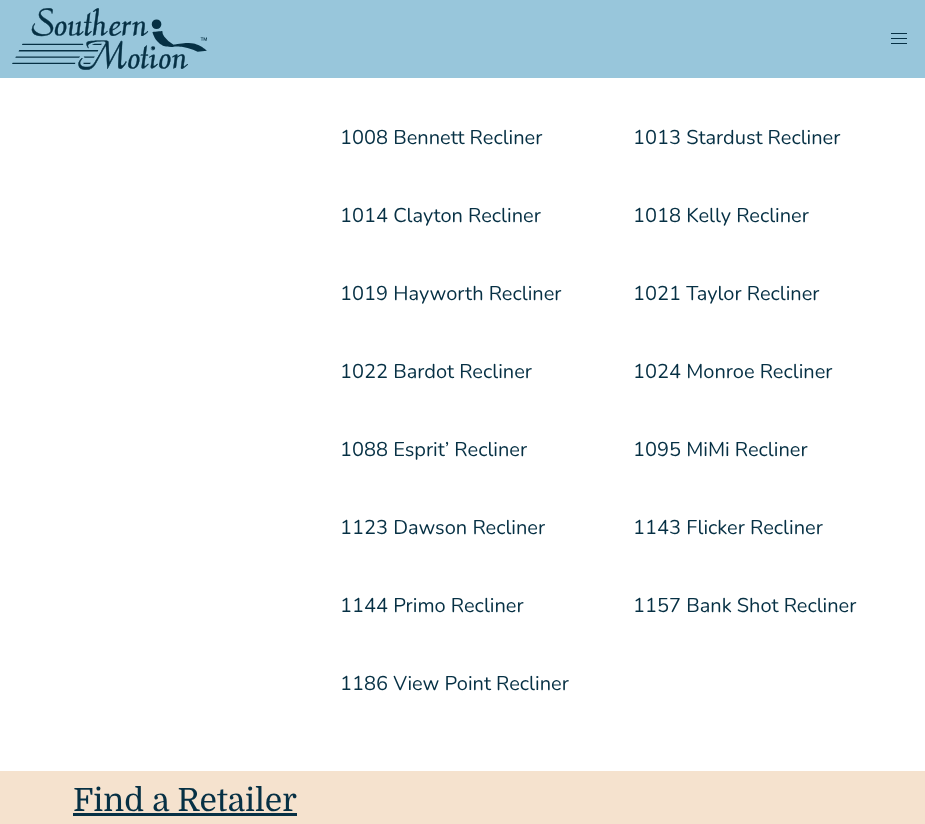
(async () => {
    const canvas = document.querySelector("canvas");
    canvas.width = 925;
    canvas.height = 824;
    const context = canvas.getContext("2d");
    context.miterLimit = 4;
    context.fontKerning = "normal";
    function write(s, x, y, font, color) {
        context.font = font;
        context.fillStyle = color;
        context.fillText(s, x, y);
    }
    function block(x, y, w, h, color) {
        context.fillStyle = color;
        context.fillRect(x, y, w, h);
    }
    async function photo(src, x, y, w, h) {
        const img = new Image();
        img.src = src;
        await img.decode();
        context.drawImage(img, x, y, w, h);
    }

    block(0, 0, 925, 824, "rgb(255, 255, 255)");
    block(0, 0, 925, 78, "rgb(152, 198, 219)");
    await photo("media/1.png", 12, 8, 195, 62);
    block(891, 33, 16, 1, "rgb(6, 48, 68)");
    block(891, 38, 16, 1, "rgb(6, 48, 68)");
    block(891, 43, 16, 1, "rgb(6, 48, 68)");
    write("1008 Bennett Recliner", 340, 144, "200 20px Nunito", "rgb(6, 48, 68)");
    write("1013 Stardust Recliner", 633, 144, "200 20px Nunito", "rgb(6, 48, 68)");
    write("1014 Clayton Recliner", 340, 222, "200 20px Nunito", "rgb(6, 48, 68)");
    write("1018 Kelly Recliner", 633, 222, "200 20px Nunito", "rgb(6, 48, 68)");
    write("1019 Hayworth Recliner", 340, 300, "200 20px Nunito", "rgb(6, 48, 68)");
    write("1021 Taylor Recliner", 633, 300, "200 20px Nunito", "rgb(6, 48, 68)");
    write("1022 Bardot Recliner", 340, 378, "200 20px Nunito", "rgb(6, 48, 68)");
    write("1024 Monroe Recliner", 633, 378, "200 20px Nunito", "rgb(6, 48, 68)");
    write("1088 Esprit’ Recliner", 340, 456, "200 20px Nunito", "rgb(6, 48, 68)");
    write("1095 MiMi Recliner", 633, 456, "200 20px Nunito", "rgb(6, 48, 68)");
    write("1123 Dawson Recliner", 340, 534, "200 20px Nunito", "rgb(6, 48, 68)");
    write("1143 Flicker Recliner", 633, 534, "200 20px Nunito", "rgb(6, 48, 68)");
    write("1144 Primo Recliner", 340, 612, "200 20px Nunito", "rgb(6, 48, 68)");
    write("1157 Bank Shot Recliner", 633, 612, "200 20px Nunito", "rgb(6, 48, 68)");
    write("1186 View Point Recliner", 340, 690, "200 20px Nunito", "rgb(6, 48, 68)");
    block(0, 771, 925, 53, "rgb(245, 226, 206)");
    write("Find a Retailer", 73, 811, "32px Domine", "rgb(6, 48, 68)");
    block(73, 813, 224, 3, "rgb(6, 48, 68)");
})();
